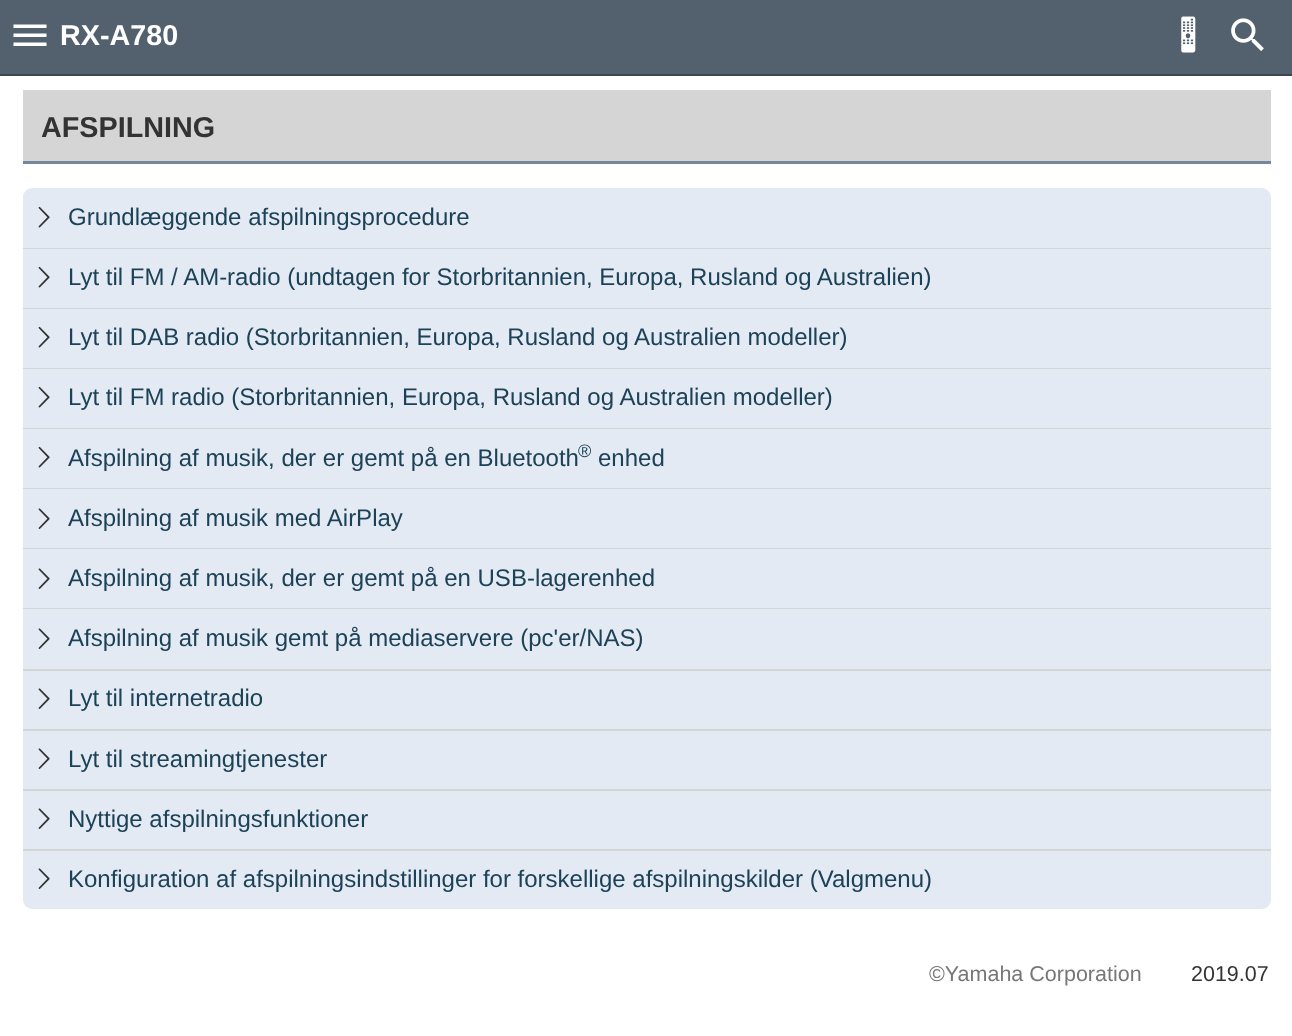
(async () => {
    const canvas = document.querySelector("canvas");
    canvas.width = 1292;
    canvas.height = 1036;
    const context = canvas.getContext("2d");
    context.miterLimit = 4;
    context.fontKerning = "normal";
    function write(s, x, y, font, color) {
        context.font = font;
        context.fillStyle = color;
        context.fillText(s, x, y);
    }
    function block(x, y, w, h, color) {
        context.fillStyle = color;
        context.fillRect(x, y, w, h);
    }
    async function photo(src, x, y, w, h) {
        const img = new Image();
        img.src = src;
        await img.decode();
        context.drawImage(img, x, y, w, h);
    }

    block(0, 0, 1292, 1036, "rgb(255, 255, 255)");
    block(0, 0, 1292, 74, "rgb(83, 96, 109)");
    block(0, 74, 1292, 2, "rgb(58, 70, 81)");
    context.fillStyle = "rgb(255, 255, 255)";
    context.beginPath();
    context.moveTo(13.5, 46);
    context.lineTo(46.5, 46);
    context.lineTo(46.5, 42.5);
    context.lineTo(13.5, 42.5);
    context.closePath();
    context.moveTo(13.5, 37);
    context.lineTo(46.5, 37);
    context.lineTo(46.5, 33.5);
    context.lineTo(13.5, 33.5);
    context.closePath();
    context.moveTo(13.5, 24.5);
    context.lineTo(13.5, 28);
    context.lineTo(46.5, 28);
    context.lineTo(46.5, 24.5);
    context.closePath();
    context.fill();
    write("RX-A780", 60, 45, "bold 28.75px Liberation Sans", "rgb(255, 255, 255)");
    await photo("media/1.png", 1181, 16, 15, 37);
    await photo("media/2.png", 1231, 18, 33, 33);
    block(23, 90, 1248, 71, "rgb(213, 213, 213)");
    block(23, 161, 1248, 3, "rgb(117, 135, 155)");
    write("AFSPILNING", 41, 137, "bold 28.75px Liberation Sans", "rgb(51, 51, 51)");
    context.fillStyle = "rgb(228, 234, 243)";
    context.beginPath();
    context.roundRect(23, 188, 1248, 60, [9, 9, 0, 0]);
    context.fill();
    await photo("media/3.png", 38, 206, 12, 22);
    write("Grundlæggende afspilningsprocedure", 68, 225, "24px Liberation Sans", "rgb(28, 66, 87)");
    block(23, 248, 1248, 1, "rgb(213, 213, 213)");
    block(23, 249, 1248, 59, "rgb(228, 234, 243)");
    await photo("media/3.png", 38, 266, 12, 22);
    write("Lyt til FM / AM-radio (undtagen for Storbritannien, Europa, Rusland og Australien)", 68, 285, "24px Liberation Sans", "rgb(28, 66, 87)");
    block(23, 308, 1248, 1, "rgb(213, 213, 213)");
    block(23, 309, 1248, 59, "rgb(228, 234, 243)");
    await photo("media/3.png", 38, 326, 12, 22);
    write("Lyt til DAB radio (Storbritannien, Europa, Rusland og Australien modeller)", 68, 345, "24px Liberation Sans", "rgb(28, 66, 87)");
    block(23, 368, 1248, 1, "rgb(213, 213, 213)");
    block(23, 369, 1248, 59, "rgb(228, 234, 243)");
    await photo("media/3.png", 38, 386, 12, 22);
    write("Lyt til FM radio (Storbritannien, Europa, Rusland og Australien modeller)", 68, 405, "24px Liberation Sans", "rgb(28, 66, 87)");
    block(23, 428, 1248, 1, "rgb(213, 213, 213)");
    block(23, 429, 1248, 59, "rgb(228, 234, 243)");
    await photo("media/3.png", 38, 446, 12, 22);
    write("Afspilning af musik, der er gemt på en Bluetooth", 68, 466, "24px Liberation Sans", "rgb(28, 66, 87)");
    write("®", 578, 457, "18px Liberation Sans", "rgb(28, 66, 87)");
    write("enhed", 598, 466, "24px Liberation Sans", "rgb(28, 66, 87)");
    block(23, 488, 1248, 1, "rgb(213, 213, 213)");
    block(23, 489, 1248, 59, "rgb(228, 234, 243)");
    await photo("media/4.png", 38, 508, 12, 21);
    write("Afspilning af musik med AirPlay", 68, 526, "24px Liberation Sans", "rgb(28, 66, 87)");
    block(23, 548, 1248, 1, "rgb(213, 213, 213)");
    block(23, 549, 1248, 59, "rgb(228, 234, 243)");
    await photo("media/4.png", 38, 568, 12, 21);
    write("Afspilning af musik, der er gemt på en USB-lagerenhed", 68, 586, "24px Liberation Sans", "rgb(28, 66, 87)");
    block(23, 608, 1248, 1, "rgb(213, 213, 213)");
    block(23, 609, 1248, 60, "rgb(228, 234, 243)");
    await photo("media/4.png", 38, 628, 12, 21);
    write("Afspilning af musik gemt på mediaservere (pc'er/NAS)", 68, 646, "24px Liberation Sans", "rgb(28, 66, 87)");
    block(23, 669, 1248, 2, "rgb(213, 213, 213)");
    block(23, 671, 1248, 58, "rgb(228, 234, 243)");
    await photo("media/4.png", 38, 688, 12, 21);
    write("Lyt til internetradio", 68, 706, "24px Liberation Sans", "rgb(28, 66, 87)");
    block(23, 729, 1248, 2, "rgb(213, 213, 213)");
    block(23, 731, 1248, 58, "rgb(228, 234, 243)");
    await photo("media/4.png", 38, 748, 12, 21);
    write("Lyt til streamingtjenester", 68, 767, "24px Liberation Sans", "rgb(28, 66, 87)");
    block(23, 789, 1248, 2, "rgb(213, 213, 213)");
    block(23, 791, 1248, 58, "rgb(228, 234, 243)");
    await photo("media/4.png", 38, 808, 12, 21);
    write("Nyttige afspilningsfunktioner", 68, 827, "24px Liberation Sans", "rgb(28, 66, 87)");
    block(23, 849, 1248, 2, "rgb(213, 213, 213)");
    context.fillStyle = "rgb(228, 234, 243)";
    context.beginPath();
    context.roundRect(23, 851, 1248, 58, [0, 0, 9, 9]);
    context.fill();
    await photo("media/4.png", 38, 868, 12, 21);
    write("Konfiguration af afspilningsindstillinger for forskellige afspilningskilder (Valgmenu)", 68, 887, "24px Liberation Sans", "rgb(28, 66, 87)");
    write("©Yamaha Corporation", 929, 981, "21.5px Liberation Sans", "rgb(119, 119, 119)");
    write("2019.07", 1191, 981, "21.5px Liberation Sans", "rgb(51, 51, 51)");
})();
